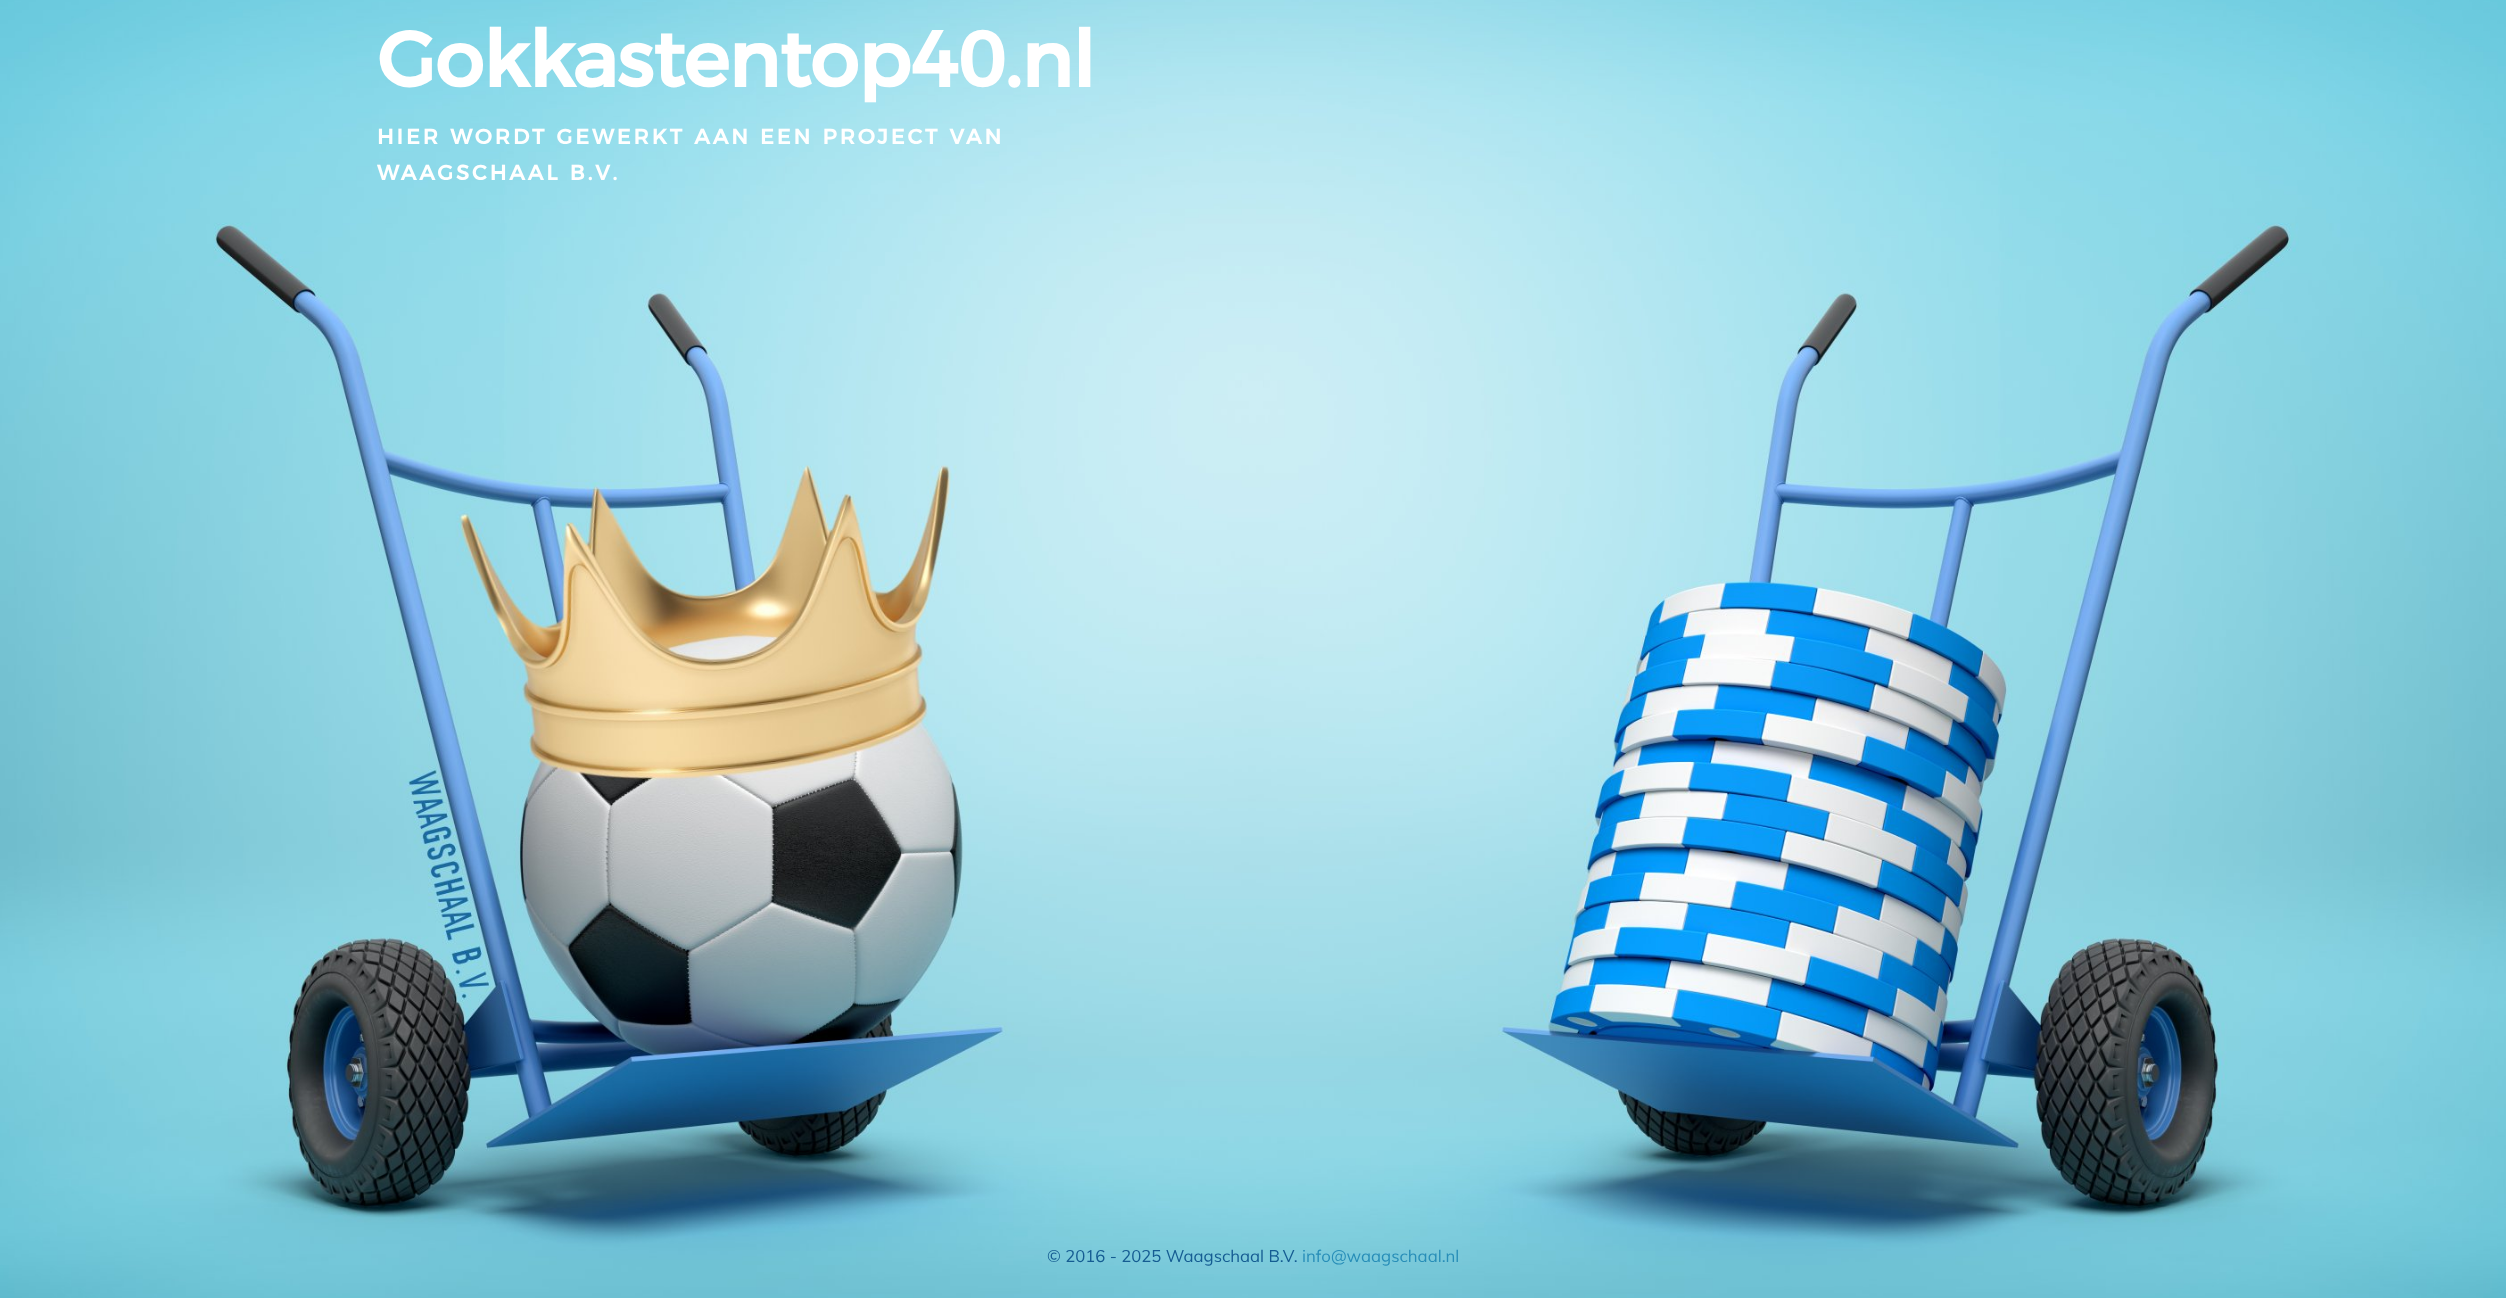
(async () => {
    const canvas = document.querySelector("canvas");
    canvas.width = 2506;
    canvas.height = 1298;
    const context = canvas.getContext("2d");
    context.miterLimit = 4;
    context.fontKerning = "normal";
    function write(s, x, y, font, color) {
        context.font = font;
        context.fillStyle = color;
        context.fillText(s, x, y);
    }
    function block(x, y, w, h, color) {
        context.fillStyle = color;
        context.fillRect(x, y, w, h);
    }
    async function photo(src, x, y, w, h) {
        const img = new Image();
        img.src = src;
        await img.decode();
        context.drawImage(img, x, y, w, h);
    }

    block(0, 0, 2506, 1298, "rgb(255, 255, 255)");
    await photo("media/1.png", 0, 0, 2506, 1298);
    context.letterSpacing = "-0.75px";
    write("Gokkastentop40.nl", 377, 87, "bold 78px Montserrat", "rgb(255, 255, 255)");
    context.letterSpacing = "3px";
    write("HIER WORDT GEWERKT AAN EEN PROJECT VAN", 377, 144, "bold 21px Montserrat", "rgb(255, 255, 255)");
    write("WAAGSCHAAL B.V.", 377, 180, "bold 21px Montserrat", "rgb(255, 255, 255)");
    context.letterSpacing = "0px";
    write("© 2016 - 2025 Waagschaal B.V.", 1047, 1262, "16.75px Muli", "rgb(21, 92, 146)");
    write("info@waagschaal.nl", 1302, 1262, "16.75px Muli", "rgb(40, 142, 184)");
})();
